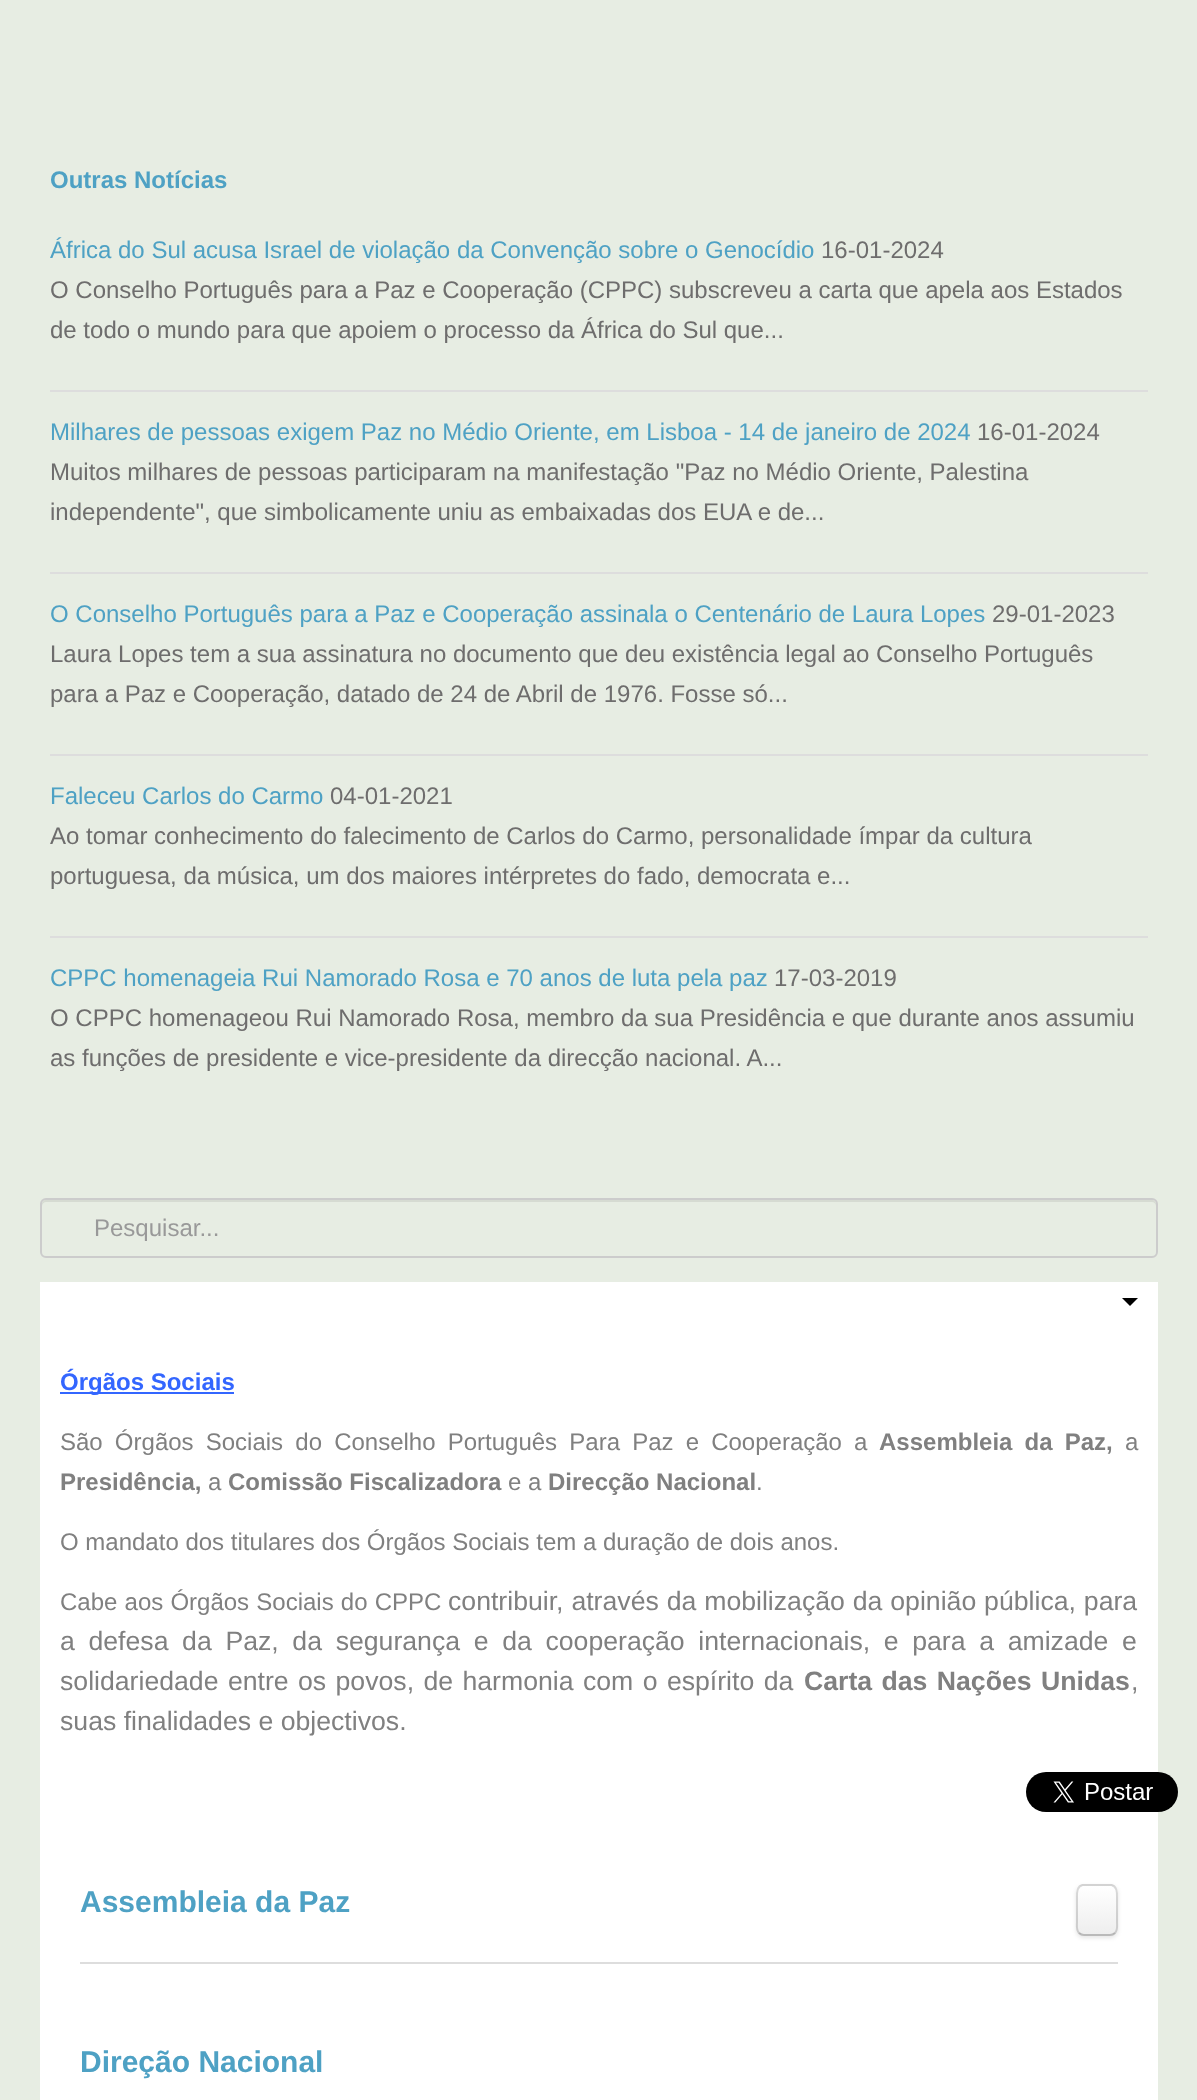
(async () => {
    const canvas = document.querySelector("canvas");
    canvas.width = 1197;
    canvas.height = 2100;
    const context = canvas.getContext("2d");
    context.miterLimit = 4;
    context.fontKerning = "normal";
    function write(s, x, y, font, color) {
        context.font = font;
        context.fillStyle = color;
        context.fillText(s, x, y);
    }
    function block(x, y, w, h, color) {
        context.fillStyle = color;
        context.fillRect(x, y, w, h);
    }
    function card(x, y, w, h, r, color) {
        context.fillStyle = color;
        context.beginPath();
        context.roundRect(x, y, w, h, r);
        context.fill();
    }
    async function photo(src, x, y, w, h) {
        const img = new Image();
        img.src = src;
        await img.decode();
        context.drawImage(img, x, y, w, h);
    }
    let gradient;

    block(0, 0, 1197, 2100, "rgb(231, 237, 227)");
    write("Outras Notícias", 50, 188, "bold 24px Liberation Sans", "rgb(78, 161, 196)");
    write("África do Sul acusa Israel de violação da Convenção sobre o Genocídio", 50, 258, "24px Liberation Sans", "rgb(78, 161, 196)");
    write("16-01-2024", 821, 258, "24px Liberation Sans", "rgb(110, 109, 109)");
    write("O Conselho Português para a Paz e Cooperação (CPPC) subscreveu a carta que apela aos Estados", 50, 298, "24px Liberation Sans", "rgb(110, 109, 109)");
    write("de todo o mundo para que apoiem o processo da África do Sul que...", 50, 338, "24px Liberation Sans", "rgb(110, 109, 109)");
    block(50, 390, 1098, 2, "rgb(221, 221, 221)");
    write("Milhares de pessoas exigem Paz no Médio Oriente, em Lisboa - 14 de janeiro de 2024", 50, 440, "24px Liberation Sans", "rgb(78, 161, 196)");
    write("16-01-2024", 977, 440, "24px Liberation Sans", "rgb(110, 109, 109)");
    write("Muitos milhares de pessoas participaram na manifestação \"Paz no Médio Oriente, Palestina", 50, 480, "24px Liberation Sans", "rgb(110, 109, 109)");
    write("independente\", que simbolicamente uniu as embaixadas dos EUA e de...", 50, 520, "24px Liberation Sans", "rgb(110, 109, 109)");
    block(50, 572, 1098, 2, "rgb(221, 221, 221)");
    write("O Conselho Português para a Paz e Cooperação assinala o Centenário de Laura Lopes", 50, 622, "24px Liberation Sans", "rgb(78, 161, 196)");
    write("29-01-2023", 992, 622, "24px Liberation Sans", "rgb(110, 109, 109)");
    write("Laura Lopes tem a sua assinatura no documento que deu existência legal ao Conselho Português", 50, 662, "24px Liberation Sans", "rgb(110, 109, 109)");
    write("para a Paz e Cooperação, datado de 24 de Abril de 1976. Fosse só...", 50, 702, "24px Liberation Sans", "rgb(110, 109, 109)");
    block(50, 754, 1098, 2, "rgb(221, 221, 221)");
    write("Faleceu Carlos do Carmo", 50, 804, "24px Liberation Sans", "rgb(78, 161, 196)");
    write("04-01-2021", 330, 804, "24px Liberation Sans", "rgb(110, 109, 109)");
    write("Ao tomar conhecimento do falecimento de Carlos do Carmo, personalidade ímpar da cultura", 50, 844, "24px Liberation Sans", "rgb(110, 109, 109)");
    write("portuguesa, da música, um dos maiores intérpretes do fado, democrata e...", 50, 884, "24px Liberation Sans", "rgb(110, 109, 109)");
    block(50, 936, 1098, 2, "rgb(221, 221, 221)");
    write("CPPC homenageia Rui Namorado Rosa e 70 anos de luta pela paz", 50, 986, "24px Liberation Sans", "rgb(78, 161, 196)");
    write("17-03-2019", 774, 986, "24px Liberation Sans", "rgb(110, 109, 109)");
    write("O CPPC homenageou Rui Namorado Rosa, membro da sua Presidência e que durante anos assumiu", 50, 1026, "24px Liberation Sans", "rgb(110, 109, 109)");
    write("as funções de presidente e vice-presidente da direcção nacional. A...", 50, 1066, "24px Liberation Sans", "rgb(110, 109, 109)");
    context.fillStyle = "rgb(214, 219, 210)";
    context.beginPath();
    context.moveTo(46, 1202);
    context.lineTo(1152, 1202);
    context.bezierCurveTo(1154, 1202, 1156, 1204, 1156, 1206);
    context.lineTo(1156, 1204);
    context.bezierCurveTo(1156, 1202, 1154, 1200, 1152, 1200);
    context.lineTo(46, 1200);
    context.bezierCurveTo(44, 1200, 42, 1202, 42, 1204);
    context.lineTo(42, 1206);
    context.bezierCurveTo(42, 1204, 44, 1202, 46, 1202);
    context.closePath();
    context.fill();
    context.beginPath();
    context.roundRect(41, 1199, 1116, 58, 5);
    context.strokeStyle = "rgb(204, 204, 204)";
    context.lineWidth = 2;
    context.stroke();
    write("Pesquisar...", 94, 1236, "24px Liberation Sans", "rgb(153, 153, 153)");
    block(40, 1282, 1118, 818, "rgb(255, 255, 255)");
    context.fillStyle = "rgb(0, 0, 0)";
    context.beginPath();
    context.moveTo(1122, 1298);
    context.lineTo(1138, 1298);
    context.lineTo(1130, 1306);
    context.closePath();
    context.fill();
    block(60, 1392, 174, 2, "rgb(51, 102, 255)");
    write("Órgãos Sociais", 60, 1390, "bold 24px Liberation Sans", "rgb(51, 102, 255)");
    context.wordSpacing = "5.5px";
    write("São Órgãos Sociais do Conselho Português Para Paz e Cooperação a", 60, 1450, "24px Liberation Sans", "rgb(128, 128, 128)");
    write("Assembleia da Paz,", 879, 1450, "bold 24px Liberation Sans", "rgb(128, 128, 128)");
    context.wordSpacing = "0px";
    write("a", 1125, 1450, "24px Liberation Sans", "rgb(128, 128, 128)");
    write("Presidência,", 60, 1490, "bold 24px Liberation Sans", "rgb(128, 128, 128)");
    write("a", 208, 1490, "24px Liberation Sans", "rgb(128, 128, 128)");
    write("Comissão Fiscalizadora", 228, 1490, "bold 24px Liberation Sans", "rgb(128, 128, 128)");
    write("e a", 508, 1490, "24px Liberation Sans", "rgb(128, 128, 128)");
    write("Direcção Nacional", 548, 1490, "bold 24px Liberation Sans", "rgb(128, 128, 128)");
    write(".", 756, 1490, "24px Liberation Sans", "rgb(128, 128, 128)");
    write("O mandato dos titulares dos Órgãos Sociais tem a duração de dois anos.", 60, 1550, "24px Liberation Sans", "rgb(128, 128, 128)");
    context.wordSpacing = "0.5px";
    write("Cabe aos Órgãos Sociais do CPPC", 60, 1610, "24px Liberation Sans", "rgb(128, 128, 128)");
    write("contribuir, através da mobilização da opinião pública, para", 448, 1610, "26.65px Liberation Sans", "rgb(128, 128, 128)");
    context.wordSpacing = "6.25px";
    write("a defesa da Paz, da segurança e da cooperação internacionais, e para a amizade e", 60, 1650, "26.65px Liberation Sans", "rgb(128, 128, 128)");
    context.wordSpacing = "2px";
    write("solidariedade entre os povos, de harmonia com o espírito da", 60, 1690, "26.65px Liberation Sans", "rgb(128, 128, 128)");
    write("Carta das Nações Unidas", 804, 1690, "bold 26.65px Liberation Sans", "rgb(128, 128, 128)");
    context.wordSpacing = "0px";
    write(",", 1131, 1690, "26.65px Liberation Sans", "rgb(128, 128, 128)");
    write("suas finalidades e objectivos.", 60, 1730, "26.65px Liberation Sans", "rgb(128, 128, 128)");
    await photo("media/1.png", 1026, 1772, 152, 40);
    block(80, 1962, 1038, 2, "rgb(221, 221, 221)");
    write("Assembleia da Paz", 80, 1912, "bold 30px Liberation Sans", "rgb(78, 161, 196)");
    context.fillStyle = "rgba(0, 0, 0, 0.1)";
    context.filter = "blur(2px)";
    context.beginPath();
    context.roundRect(1076, 1886, 42, 52, 8);
    context.fill();
    context.filter = "none";
    card(1076, 1884, 42, 52, 8, "rgb(248, 248, 248)");
    context.save();
    context.beginPath();
    context.roundRect(1076, 1884, 42, 52, 8);
    context.clip();
    gradient = context.createLinearGradient(1097, 1886, 1097, 1934);
    gradient.addColorStop(0, "rgb(255, 255, 255)");
    gradient.addColorStop(1, "rgb(238, 238, 238)");
    context.fillStyle = gradient;
    context.fillRect(1076, 1886, 42, 48);
    context.restore();
    context.beginPath();
    context.moveTo(1115, 1933);
    context.bezierCurveTo(1113.5, 1934.5, 1112, 1935, 1110, 1935);
    context.lineTo(1084, 1935);
    context.bezierCurveTo(1082, 1935, 1080.5, 1934.5, 1079, 1933);
    context.strokeStyle = "rgba(0, 0, 0, 0.25)";
    context.stroke();
    context.beginPath();
    context.moveTo(1079, 1933);
    context.bezierCurveTo(1076, 1930, 1077, 1925.5, 1077, 1922);
    context.lineTo(1077, 1898);
    context.bezierCurveTo(1077, 1893, 1076.5, 1886.5, 1082.5, 1885);
    context.lineTo(1111.5, 1885);
    context.bezierCurveTo(1117.5, 1886.5, 1117, 1893, 1117, 1898);
    context.lineTo(1117, 1922);
    context.bezierCurveTo(1117, 1925.5, 1118, 1930, 1115, 1933);
    context.strokeStyle = "rgba(0, 0, 0, 0.15)";
    context.stroke();
    write("Direção Nacional", 80, 2072, "bold 30px Liberation Sans", "rgb(78, 161, 196)");
})();
